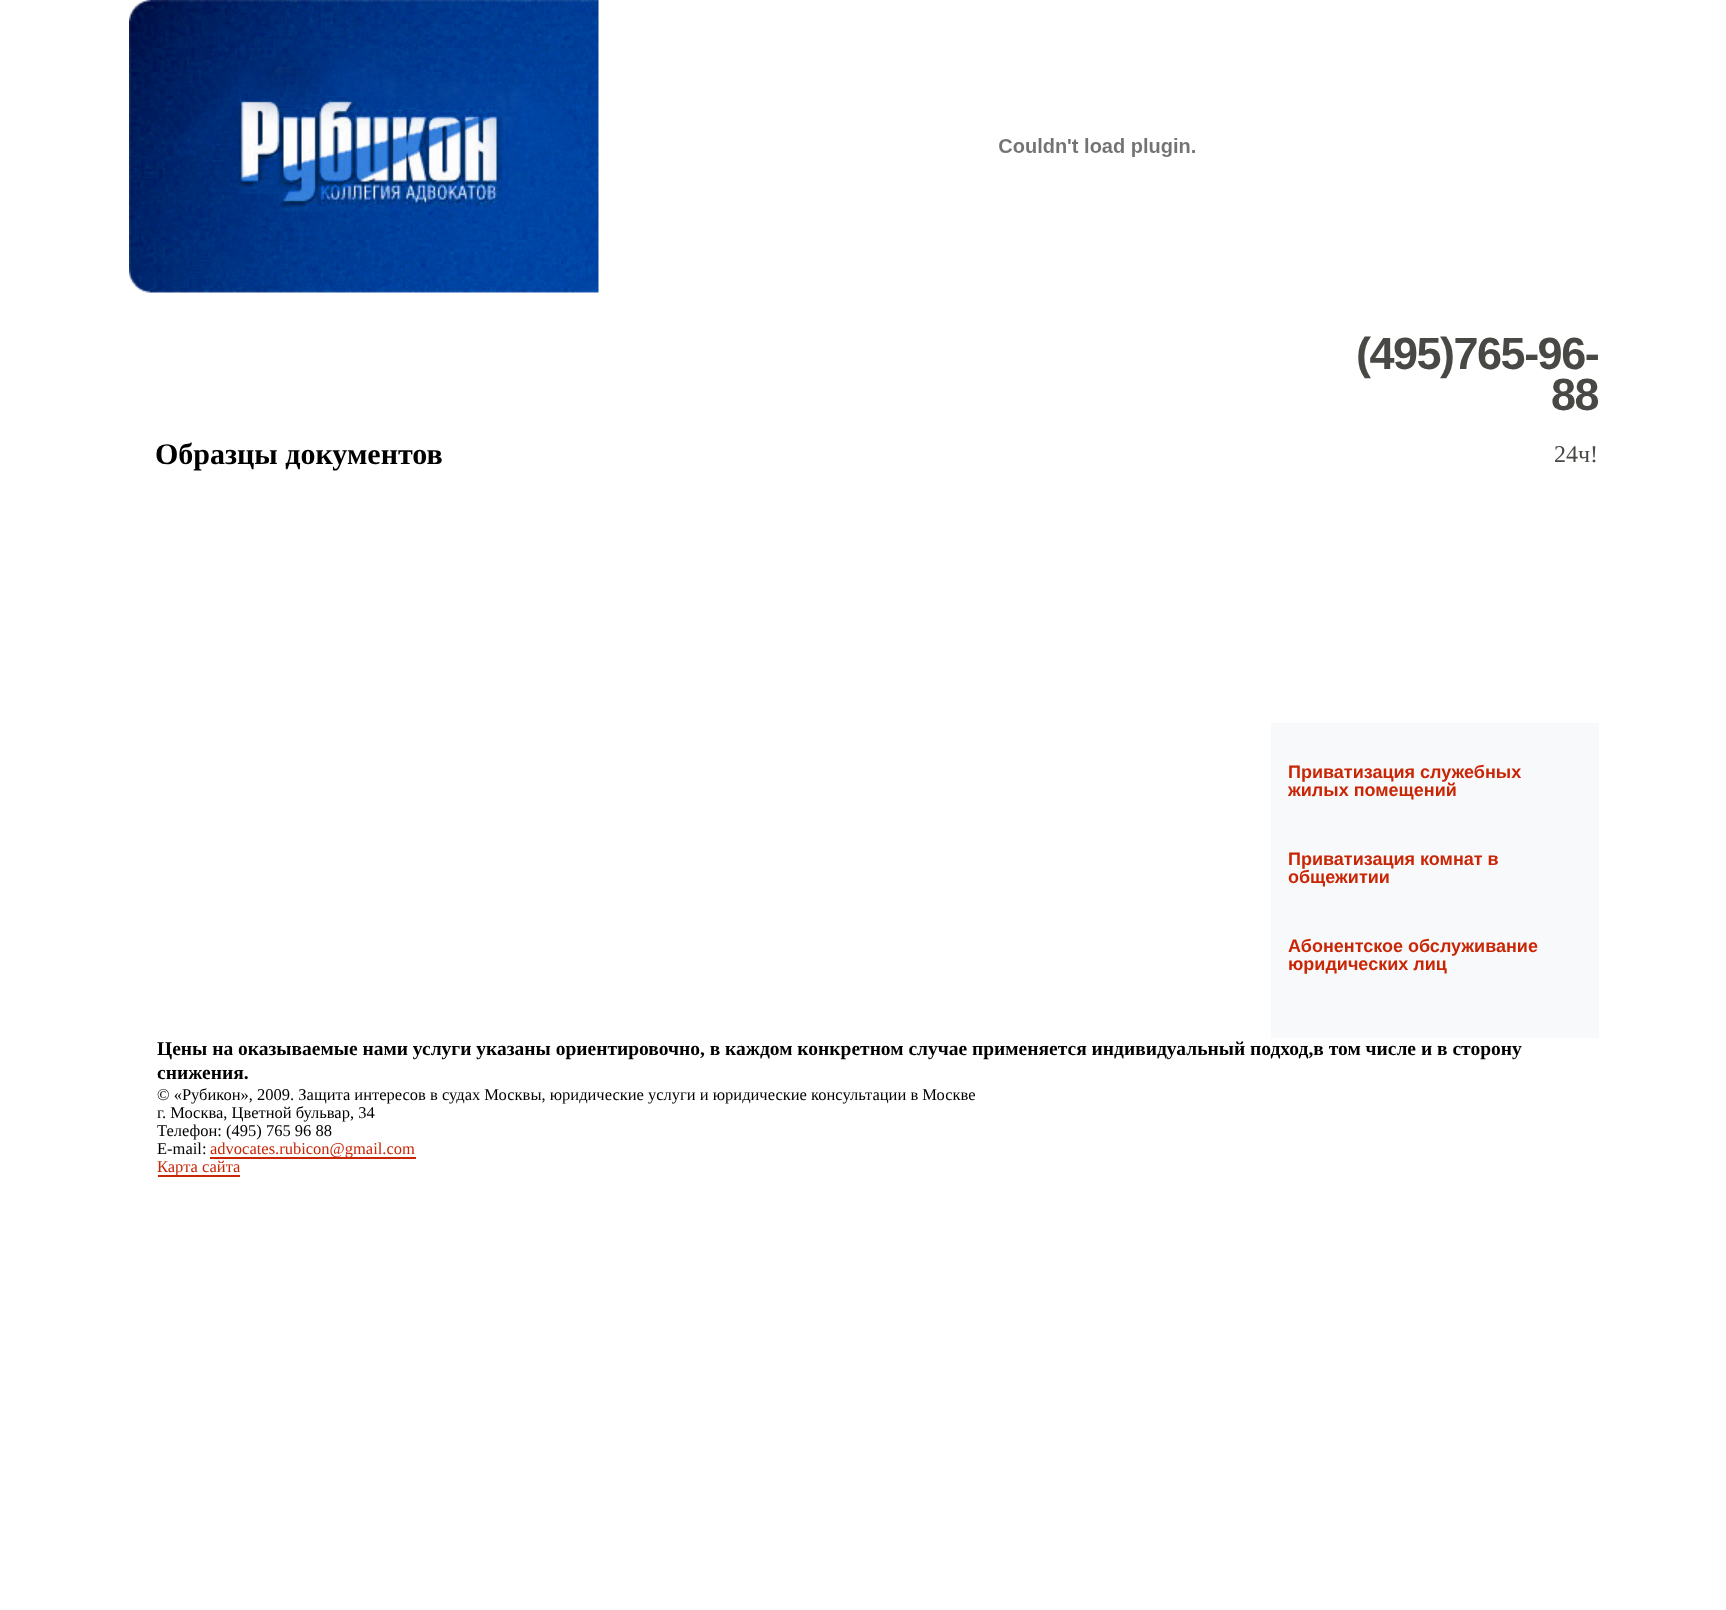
(async () => {
    const canvas = document.querySelector("canvas");
    canvas.width = 1726;
    canvas.height = 1610;
    const context = canvas.getContext("2d");
    context.miterLimit = 4;
    context.fontKerning = "normal";
    function write(s, x, y, font, color) {
        context.font = font;
        context.fillStyle = color;
        context.fillText(s, x, y);
    }
    function block(x, y, w, h, color) {
        context.fillStyle = color;
        context.fillRect(x, y, w, h);
    }
    async function photo(src, x, y, w, h) {
        const img = new Image();
        img.src = src;
        await img.decode();
        context.drawImage(img, x, y, w, h);
    }

    block(0, 0, 1726, 1610, "rgb(255, 255, 255)");
    await photo("media/1.png", 129, 0, 470, 293);
    await photo("media/2.png", 999, 138, 196, 19);
    write("Образцы документов", 155, 464, "bold 30px Liberation Serif", "rgb(0, 0, 0)");
    context.letterSpacing = "-1.5px";
    write("(495)765-96-", 1356, 369, "bold 45px Liberation Sans", "rgb(72, 73, 69)");
    write("88", 1551, 410, "bold 45px Liberation Sans", "rgb(72, 73, 69)");
    context.letterSpacing = "0px";
    write("24ч!", 1554, 462, "24px Liberation Serif", "rgb(72, 73, 69)");
    block(1271, 723, 328, 315, "rgb(248, 249, 250)");
    write("Приватизация служебных", 1288, 778, "bold 18px Liberation Sans", "rgb(201, 38, 6)");
    write("жилых помещений", 1288, 796, "bold 18px Liberation Sans", "rgb(201, 38, 6)");
    write("Приватизация комнат в", 1288, 865, "bold 18px Liberation Sans", "rgb(201, 38, 6)");
    write("общежитии", 1288, 883, "bold 18px Liberation Sans", "rgb(201, 38, 6)");
    write("Абонентское обслуживание", 1288, 952, "bold 18px Liberation Sans", "rgb(201, 38, 6)");
    write("юридических лиц", 1288, 970, "bold 18px Liberation Sans", "rgb(201, 38, 6)");
    write("Цены на оказываемые нами услуги указаны ориентировочно, в каждом конкретном случае применяется индивидуальный подход,в том числе и в сторону", 157, 1055, "bold 19.5px Liberation Serif", "rgb(0, 0, 0)");
    write("снижения.", 157, 1079, "bold 19.5px Liberation Serif", "rgb(0, 0, 0)");
    write("© «Рубикон», 2009. Защита интересов в судах Москвы, юридические услуги и юридические консультации в Москве", 157, 1100, "16.5px Liberation Serif", "rgb(0, 0, 0)");
    write("г. Москва, Цветной бульвар, 34", 157, 1118, "16.5px Liberation Serif", "rgb(0, 0, 0)");
    write("Телефон: (495) 765 96 88", 157, 1136, "16.5px Liberation Serif", "rgb(0, 0, 0)");
    write("E-mail:", 157, 1154, "16.5px Liberation Serif", "rgb(0, 0, 0)");
    block(210, 1157, 206, 2, "rgb(201, 38, 6)");
    write("advocates.rubicon@gmail.com", 210, 1154, "16.5px Liberation Serif", "rgb(201, 38, 6)");
    block(158, 1175, 82, 2, "rgb(201, 38, 6)");
    write("Карта сайта", 157, 1172, "16.5px Liberation Serif", "rgb(201, 38, 6)");
})();
